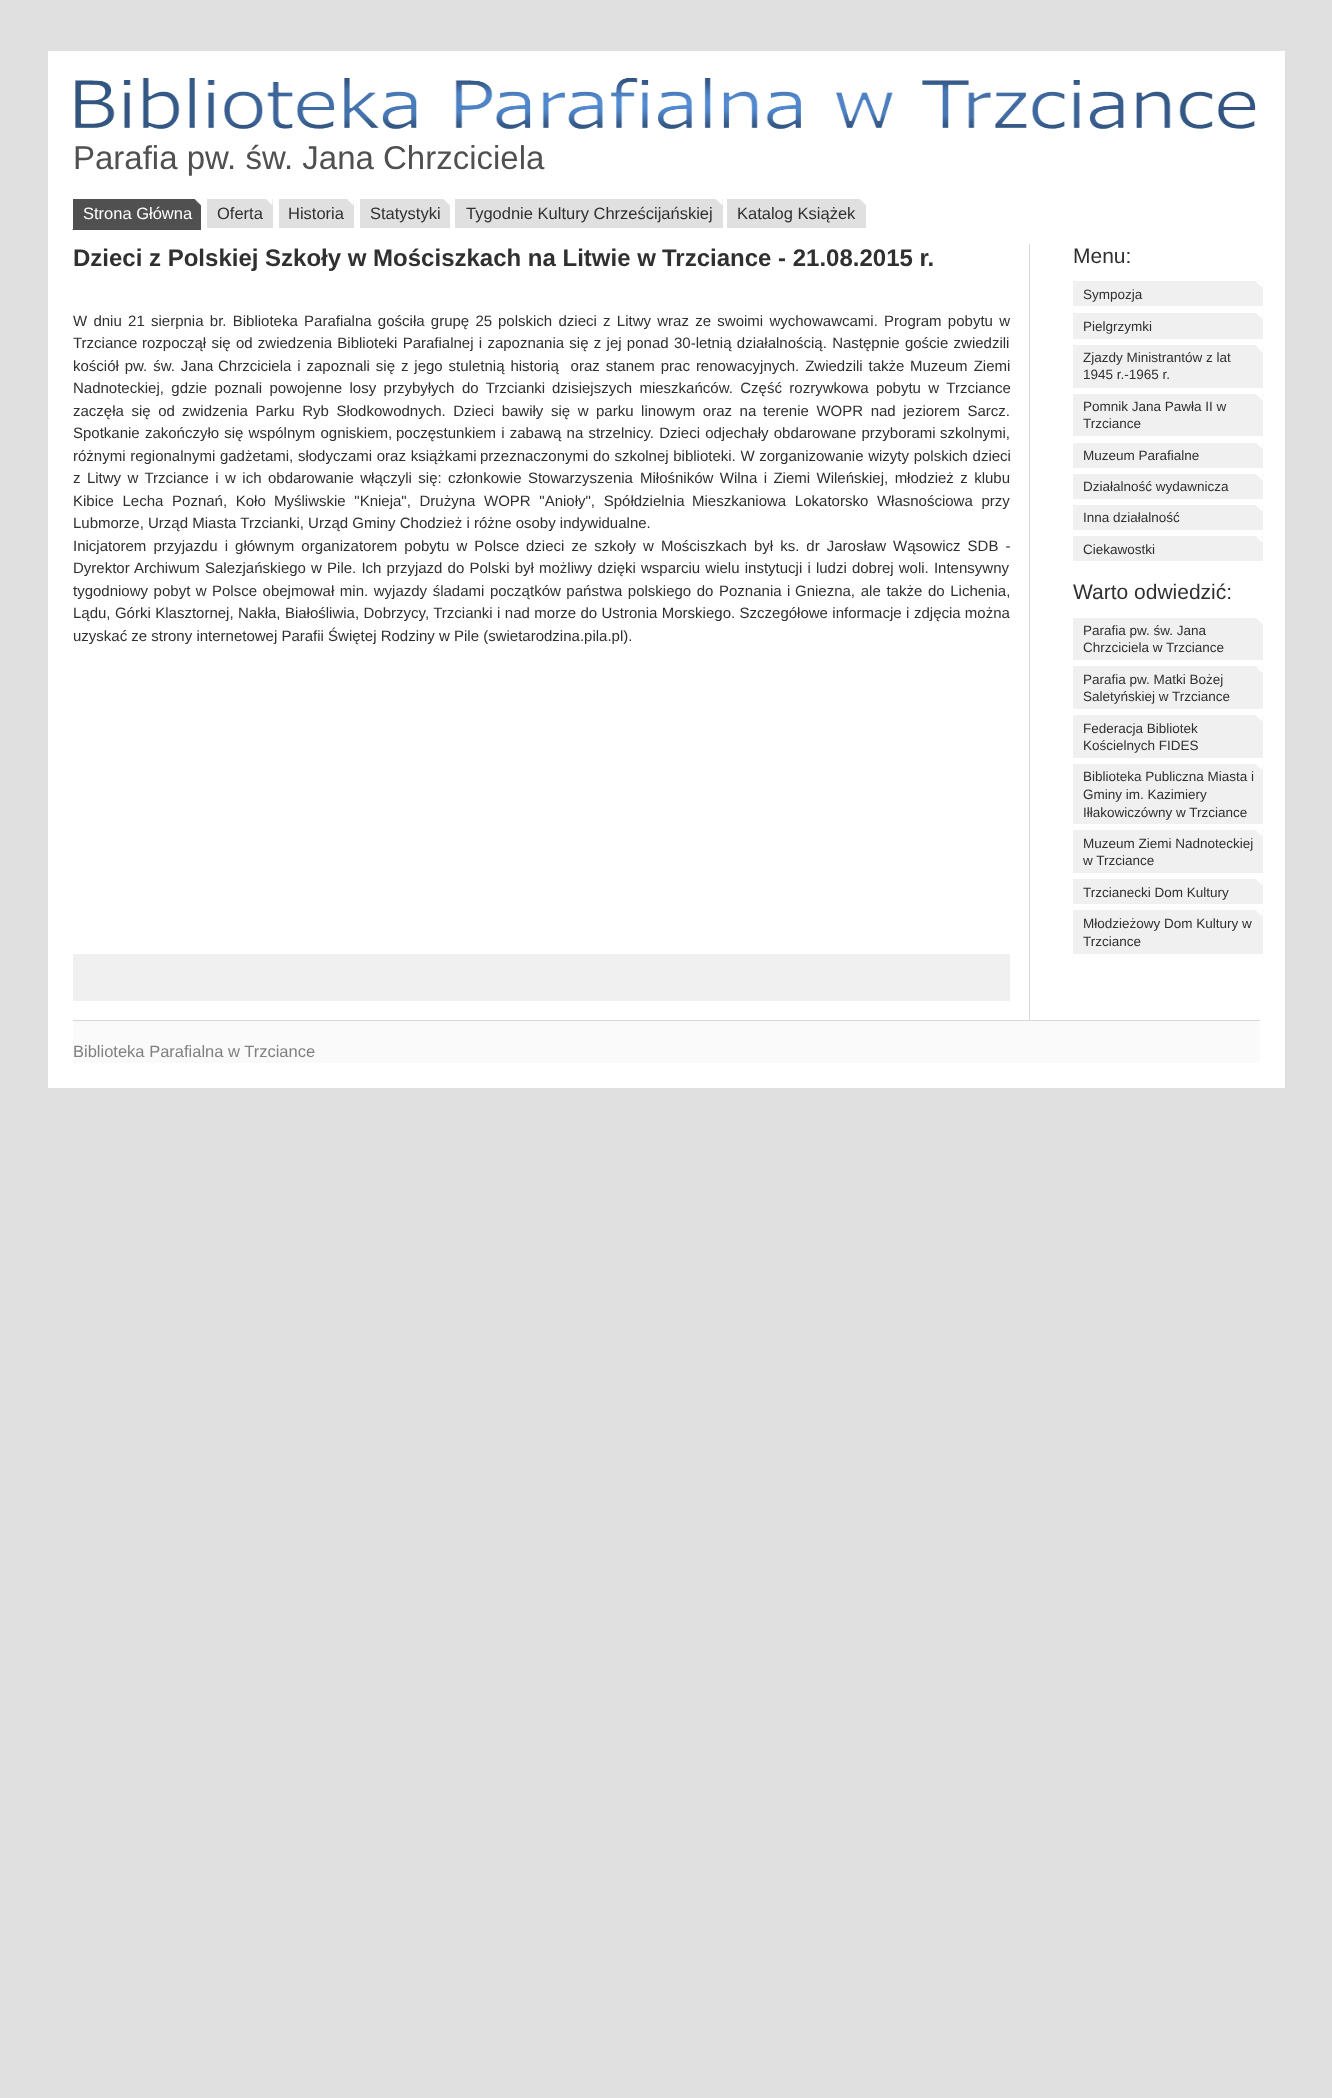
(async () => {
    const canvas = document.querySelector("canvas");
    canvas.width = 1332;
    canvas.height = 2098;
    const context = canvas.getContext("2d");
    context.miterLimit = 4;
    context.fontKerning = "normal";
    function write(s, x, y, font, color) {
        context.font = font;
        context.fillStyle = color;
        context.fillText(s, x, y);
    }
    function block(x, y, w, h, color) {
        context.fillStyle = color;
        context.fillRect(x, y, w, h);
    }
    async function photo(src, x, y, w, h) {
        const img = new Image();
        img.src = src;
        await img.decode();
        context.drawImage(img, x, y, w, h);
    }

    block(0, 0, 1332, 2098, "rgb(224, 224, 224)");
    block(48, 51, 1237, 1037, "rgb(255, 255, 255)");
    await photo("media/1.png", 75, 78, 1181, 51);
    write("Parafia pw. św. Jana Chrzciciela", 73, 169, "33px Liberation Sans", "rgb(80, 80, 80)");
    block(73, 199, 128, 31, "rgb(80, 80, 80)");
    await photo("media/2.png", 194, 199, 7, 7);
    block(207, 199, 66, 29, "rgb(224, 224, 224)");
    await photo("media/3.png", 266, 199, 7, 6);
    block(279, 199, 75, 29, "rgb(224, 224, 224)");
    await photo("media/4.png", 347, 199, 7, 6);
    block(360, 199, 90, 29, "rgb(224, 224, 224)");
    await photo("media/5.png", 443, 199, 7, 6);
    block(455, 199, 268, 29, "rgb(224, 224, 224)");
    await photo("media/3.png", 716, 199, 7, 6);
    block(727, 199, 139, 29, "rgb(224, 224, 224)");
    await photo("media/6.png", 860, 199, 6, 6);
    write("Strona Główna", 83, 219, "16.5px Liberation Sans", "rgb(255, 255, 255)");
    context.beginPath();
    context.moveTo(72.5, 229.5);
    context.lineTo(201, 229.5);
    context.strokeStyle = "rgb(80, 80, 80)";
    context.lineWidth = 1.2;
    context.setLineDash([1.25, 1.25]);
    context.stroke();
    write("Oferta", 217, 219, "16.5px Liberation Sans", "rgb(48, 48, 48)");
    write("Historia", 288, 219, "16.5px Liberation Sans", "rgb(48, 48, 48)");
    write("Statystyki", 370, 219, "16.5px Liberation Sans", "rgb(48, 48, 48)");
    write("Tygodnie Kultury Chrześcijańskiej", 466, 219, "16.5px Liberation Sans", "rgb(48, 48, 48)");
    write("Katalog Książek", 737, 219, "16.5px Liberation Sans", "rgb(48, 48, 48)");
    block(1029, 244, 1, 776, "rgb(216, 216, 216)");
    write("Dzieci z Polskiej Szkoły w Mościszkach na Litwie w", 73, 266, "bold 24px Liberation Sans", "rgb(48, 48, 48)");
    write("Trzciance - 21.08.2015 r.", 662, 266, "bold 24px Liberation Sans", "rgb(48, 48, 48)");
    context.wordSpacing = "2.1px";
    write("W dniu 21 sierpnia br. Biblioteka Parafialna gościła grupę 25", 73, 326, "15px Liberation Sans", "rgb(48, 48, 48)");
    write("polskich dzieci z Litwy wraz ze swoimi wychowawcami. Program pobytu w", 498, 326, "15px Liberation Sans", "rgb(48, 48, 48)");
    context.wordSpacing = "0px";
    write("Trzciance", 73, 348, "15px Liberation Sans", "rgb(48, 48, 48)");
    context.wordSpacing = "1.1px";
    write("rozpoczął się od zwiedzenia Biblioteki Parafialnej i zapoznania się z jej ponad", 142, 348, "15px Liberation Sans", "rgb(48, 48, 48)");
    write("30-letnią działalnością. Następnie goście zwiedzili", 674, 348, "15px Liberation Sans", "rgb(48, 48, 48)");
    context.wordSpacing = "1.75px";
    write("kościół pw. św. Jana", 73, 371, "15px Liberation Sans", "rgb(48, 48, 48)");
    write("Chrzciciela i zapoznali się z jego stuletnią historią  oraz stanem prac renowacyjnych. Zwiedzili także", 218, 371, "15px Liberation Sans", "rgb(48, 48, 48)");
    context.wordSpacing = "2px";
    write("Muzeum Ziemi", 910, 371, "15px Liberation Sans", "rgb(48, 48, 48)");
    context.wordSpacing = "3.25px";
    write("Nadnoteckiej, gdzie poznali powojenne losy przybyłych do Trzcianki", 73, 393, "15px Liberation Sans", "rgb(48, 48, 48)");
    write("dzisiejszych mieszkańców. Część rozrywkowa pobytu w Trzciance", 552, 393, "15px Liberation Sans", "rgb(48, 48, 48)");
    context.wordSpacing = "3.4px";
    write("zaczęła się od", 73, 416, "15px Liberation Sans", "rgb(48, 48, 48)");
    write("zwidzenia Parku Ryb Słodkowodnych. Dzieci bawiły się w parku linowym oraz na", 182, 416, "15px Liberation Sans", "rgb(48, 48, 48)");
    write("terenie WOPR nad jeziorem Sarcz.", 763, 416, "15px Liberation Sans", "rgb(48, 48, 48)");
    context.wordSpacing = "1px";
    write("Spotkanie zakończyło się wspólnym ogniskiem,", 73, 438, "15px Liberation Sans", "rgb(48, 48, 48)");
    write("poczęstunkiem i zabawą na strzelnicy. Dzieci odjechały obdarowane przyborami", 396, 438, "15px Liberation Sans", "rgb(48, 48, 48)");
    context.wordSpacing = "0px";
    write("szkolnymi,", 940, 438, "15px Liberation Sans", "rgb(48, 48, 48)");
    context.wordSpacing = "0.5px";
    write("różnymi regionalnymi gadżetami, słodyczami oraz książkami", 73, 461, "15px Liberation Sans", "rgb(48, 48, 48)");
    write("przeznaczonymi do szkolnej biblioteki. W zorganizowanie wizyty polskich dzieci", 480, 461, "15px Liberation Sans", "rgb(48, 48, 48)");
    context.wordSpacing = "2.25px";
    write("z Litwy w Trzciance i w ich obdarowanie włączyli się: członkowie Stowarzyszenia", 73, 483, "15px Liberation Sans", "rgb(48, 48, 48)");
    write("Miłośników Wilna i Ziemi Wileńskiej, młodzież z klubu", 640, 483, "15px Liberation Sans", "rgb(48, 48, 48)");
    context.wordSpacing = "4.5px";
    write("Kibice Lecha Poznań, Koło", 73, 506, "15px Liberation Sans", "rgb(48, 48, 48)");
    write("Myśliwskie \"Knieja\", Drużyna WOPR \"Anioły\", Spółdzielnia", 274, 506, "15px Liberation Sans", "rgb(48, 48, 48)");
    write("Mieszkaniowa Lokatorsko Własnościowa przy", 692, 506, "15px Liberation Sans", "rgb(48, 48, 48)");
    context.wordSpacing = "0px";
    write("Lubmorze, Urząd Miasta Trzcianki, Urząd Gminy Chodzież i różne osoby indywidualne.", 73, 528, "15px Liberation Sans", "rgb(48, 48, 48)");
    context.wordSpacing = "2.9px";
    write("Inicjatorem przyjazdu i głównym organizatorem pobytu w Polsce", 73, 551, "15px Liberation Sans", "rgb(48, 48, 48)");
    write("dzieci ze szkoły w Mościszkach był ks. dr Jarosław Wąsowicz SDB -", 526, 551, "15px Liberation Sans", "rgb(48, 48, 48)");
    context.wordSpacing = "0px";
    write("Dyrektor", 73, 573, "15px Liberation Sans", "rgb(48, 48, 48)");
    context.wordSpacing = "1px";
    write("Archiwum Salezjańskiego w Pile. Ich przyjazd do Polski był możliwy dzięki", 134, 573, "15px Liberation Sans", "rgb(48, 48, 48)");
    write("wsparciu wielu instytucji i ludzi dobrej woli. Intensywny", 641, 573, "15px Liberation Sans", "rgb(48, 48, 48)");
    context.wordSpacing = "1.4px";
    write("tygodniowy pobyt w", 73, 596, "15px Liberation Sans", "rgb(48, 48, 48)");
    write("Polsce obejmował min. wyjazdy śladami początków państwa polskiego do Poznania i", 212, 596, "15px Liberation Sans", "rgb(48, 48, 48)");
    context.wordSpacing = "1.5px";
    write("Gniezna, ale także do Lichenia,", 795, 596, "15px Liberation Sans", "rgb(48, 48, 48)");
    context.wordSpacing = "0.25px";
    write("Lądu, Górki Klasztornej, Nakła, Białośliwia, Dobrzycy, Trzcianki i nad morze do Ustronia Morskiego. Szczegółowe informacje i", 73, 618, "15px Liberation Sans", "rgb(48, 48, 48)");
    context.wordSpacing = "0px";
    write("zdjęcia można", 914, 618, "15px Liberation Sans", "rgb(48, 48, 48)");
    write("uzyskać ze strony internetowej Parafii Świętej Rodziny w Pile (swietarodzina.pila.pl).", 73, 641, "15px Liberation Sans", "rgb(48, 48, 48)");
    block(73, 954, 937, 47, "rgb(240, 240, 240)");
    write("Menu:", 1073, 263, "21px Liberation Sans", "rgb(48, 48, 48)");
    block(1073, 281, 190, 25, "rgb(240, 240, 240)");
    await photo("media/7.png", 1256, 281, 7, 7);
    write("Sympozja", 1083, 299, "13.5px Liberation Sans", "rgb(48, 48, 48)");
    block(1073, 313, 190, 26, "rgb(240, 240, 240)");
    await photo("media/8.png", 1256, 313, 7, 6);
    write("Pielgrzymki", 1083, 331, "13.5px Liberation Sans", "rgb(48, 48, 48)");
    block(1073, 345, 190, 43, "rgb(240, 240, 240)");
    await photo("media/9.png", 1256, 345, 7, 7);
    write("Zjazdy Ministrantów z lat", 1083, 362, "13.5px Liberation Sans", "rgb(48, 48, 48)");
    write("1945 r.-1965 r.", 1083, 379, "13.5px Liberation Sans", "rgb(48, 48, 48)");
    block(1073, 394, 190, 42, "rgb(240, 240, 240)");
    await photo("media/10.png", 1256, 394, 7, 6);
    write("Pomnik Jana Pawła II w", 1083, 411, "13.5px Liberation Sans", "rgb(48, 48, 48)");
    write("Trzciance", 1083, 428, "13.5px Liberation Sans", "rgb(48, 48, 48)");
    block(1073, 443, 190, 25, "rgb(240, 240, 240)");
    await photo("media/8.png", 1256, 443, 7, 6);
    write("Muzeum Parafialne", 1083, 460, "13.5px Liberation Sans", "rgb(48, 48, 48)");
    block(1073, 474, 190, 25, "rgb(240, 240, 240)");
    await photo("media/10.png", 1256, 474, 7, 6);
    write("Działalność wydawnicza", 1083, 491, "13.5px Liberation Sans", "rgb(48, 48, 48)");
    block(1073, 505, 190, 25, "rgb(240, 240, 240)");
    await photo("media/11.png", 1256, 505, 7, 6);
    write("Inna działalność", 1083, 522, "13.5px Liberation Sans", "rgb(48, 48, 48)");
    block(1073, 536, 190, 25, "rgb(240, 240, 240)");
    await photo("media/7.png", 1256, 536, 7, 7);
    write("Ciekawostki", 1083, 554, "13.5px Liberation Sans", "rgb(48, 48, 48)");
    write("Warto odwiedzić:", 1073, 599, "21px Liberation Sans", "rgb(48, 48, 48)");
    block(1073, 618, 190, 42, "rgb(240, 240, 240)");
    await photo("media/8.png", 1256, 618, 7, 6);
    write("Parafia pw. św. Jana", 1083, 635, "13.5px Liberation Sans", "rgb(48, 48, 48)");
    write("Chrzciciela w Trzciance", 1083, 652, "13.5px Liberation Sans", "rgb(48, 48, 48)");
    block(1073, 666, 190, 43, "rgb(240, 240, 240)");
    await photo("media/7.png", 1256, 666, 7, 7);
    write("Parafia pw. Matki Bożej", 1083, 684, "13.5px Liberation Sans", "rgb(48, 48, 48)");
    write("Saletyńskiej w Trzciance", 1083, 701, "13.5px Liberation Sans", "rgb(48, 48, 48)");
    block(1073, 715, 190, 43, "rgb(240, 240, 240)");
    await photo("media/11.png", 1256, 715, 7, 6);
    write("Federacja Bibliotek", 1083, 733, "13.5px Liberation Sans", "rgb(48, 48, 48)");
    write("Kościelnych FIDES", 1083, 750, "13.5px Liberation Sans", "rgb(48, 48, 48)");
    block(1073, 764, 190, 60, "rgb(240, 240, 240)");
    await photo("media/10.png", 1256, 764, 7, 6);
    write("Biblioteka Publiczna Miasta i", 1083, 781, "13.5px Liberation Sans", "rgb(48, 48, 48)");
    write("Gminy im. Kazimiery", 1083, 799, "13.5px Liberation Sans", "rgb(48, 48, 48)");
    write("Iłłakowiczówny w Trzciance", 1083, 817, "13.5px Liberation Sans", "rgb(48, 48, 48)");
    block(1073, 830, 190, 43, "rgb(240, 240, 240)");
    await photo("media/11.png", 1256, 830, 7, 6);
    write("Muzeum Ziemi Nadnoteckiej", 1083, 848, "13.5px Liberation Sans", "rgb(48, 48, 48)");
    write("w Trzciance", 1083, 865, "13.5px Liberation Sans", "rgb(48, 48, 48)");
    block(1073, 879, 190, 25, "rgb(240, 240, 240)");
    await photo("media/10.png", 1256, 879, 7, 6);
    write("Trzcianecki Dom Kultury", 1083, 897, "13.5px Liberation Sans", "rgb(48, 48, 48)");
    block(1073, 910, 190, 44, "rgb(240, 240, 240)");
    await photo("media/11.png", 1256, 910, 7, 6);
    write("Młodzieżowy Dom Kultury w", 1083, 928, "13.5px Liberation Sans", "rgb(48, 48, 48)");
    write("Trzciance", 1083, 946, "13.5px Liberation Sans", "rgb(48, 48, 48)");
    block(73, 1021, 1187, 42, "rgb(250, 250, 250)");
    block(73, 1020, 1187, 1, "rgb(216, 216, 216)");
    write("Biblioteka Parafialna w Trzciance", 73, 1057, "16.5px Liberation Sans", "rgb(128, 128, 128)");
})();
